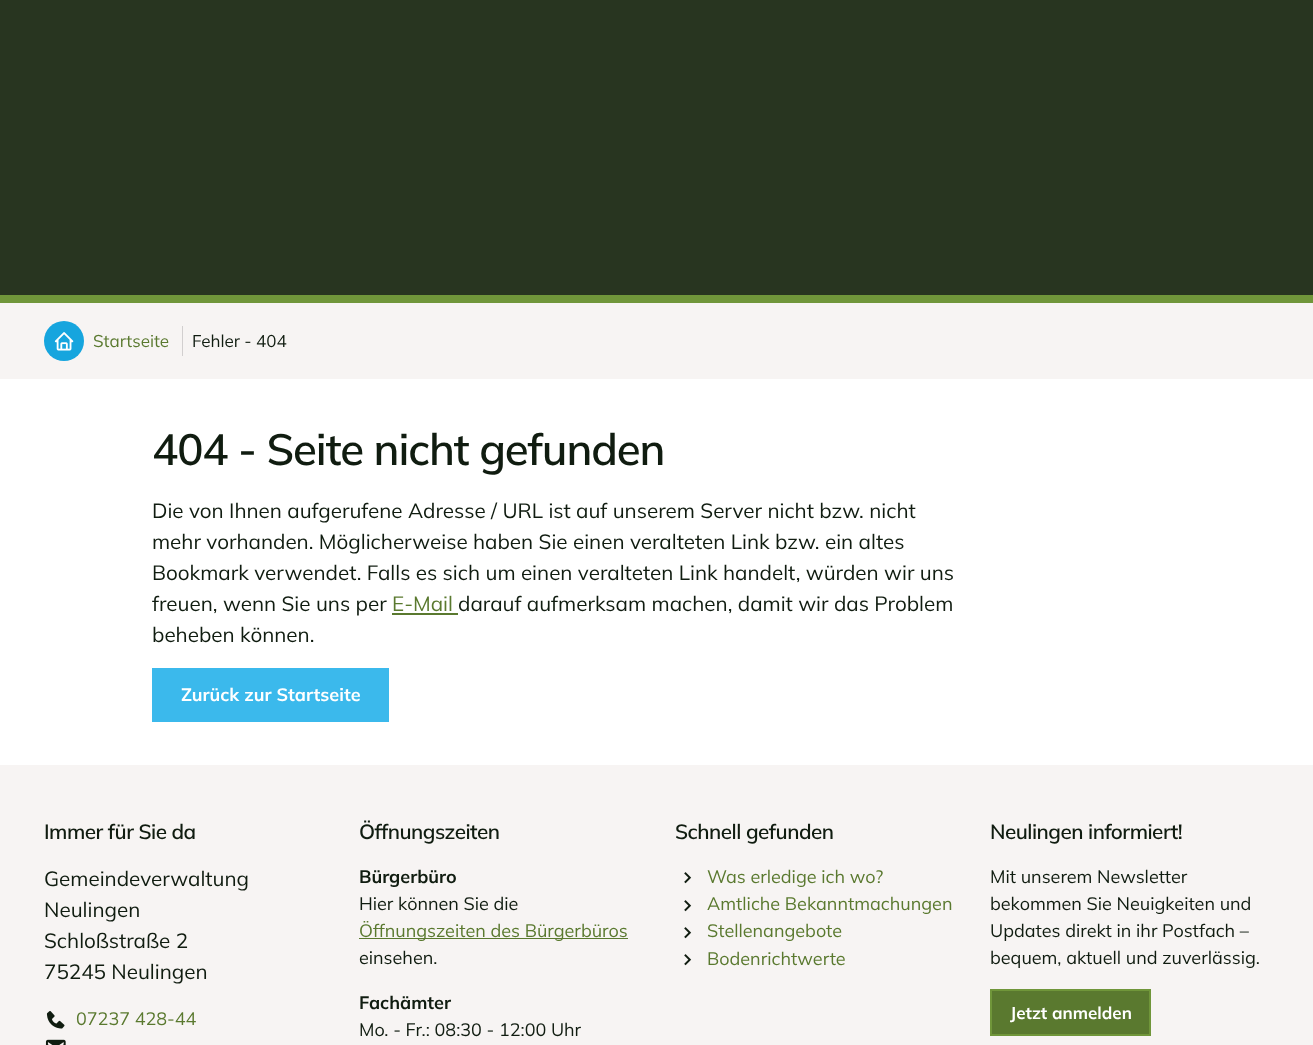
(async () => {
    const canvas = document.querySelector("canvas");
    canvas.width = 1313;
    canvas.height = 1045;
    const context = canvas.getContext("2d");
    context.miterLimit = 4;
    context.fontKerning = "normal";
    function write(s, x, y, font, color) {
        context.font = font;
        context.fillStyle = color;
        context.fillText(s, x, y);
    }
    function block(x, y, w, h, color) {
        context.fillStyle = color;
        context.fillRect(x, y, w, h);
    }
    async function photo(src, x, y, w, h) {
        const img = new Image();
        img.src = src;
        await img.decode();
        context.drawImage(img, x, y, w, h);
    }

    block(0, 0, 1313, 1045, "rgb(255, 255, 255)");
    block(0, 0, 1313, 295, "rgb(40, 53, 32)");
    block(0, 303, 1313, 76, "rgb(247, 244, 243)");
    block(0, 295, 1313, 8, "rgb(112, 150, 58)");
    context.fillStyle = "rgb(22, 165, 222)";
    context.beginPath();
    context.arc(64, 341, 20, 0, Math.PI * 2);
    context.fill();
    await photo("media/1.png", 54, 332, 20, 19);
    write("Startseite", 93, 347, "17px Mulish", "rgb(90, 121, 47)");
    write("Fehler - 404", 192, 347, "17px Mulish", "rgb(16, 28, 16)");
    block(182, 326, 1, 30, "rgb(210, 207, 207)");
    context.letterSpacing = "-1.1px";
    write("404 - Seite nicht gefunden", 152, 465, "600 43.75px Mulish", "rgb(16, 28, 16)");
    context.letterSpacing = "0px";
    write("Die von Ihnen aufgerufene Adresse / URL ist auf unserem Server nicht bzw. nicht", 152, 518, "20.65px Mulish", "rgb(16, 28, 16)");
    write("mehr vorhanden. Möglicherweise haben Sie einen veralteten Link bzw. ein altes", 152, 549, "20.65px Mulish", "rgb(16, 28, 16)");
    write("Bookmark verwendet. Falls es sich um einen veralteten Link handelt, würden wir uns", 152, 580, "20.65px Mulish", "rgb(16, 28, 16)");
    write("freuen, wenn Sie uns per", 152, 611, "20.65px Mulish", "rgb(16, 28, 16)");
    write("E-Mail", 392, 611, "20.65px Mulish", "rgb(90, 121, 47)");
    block(392, 613, 66, 2, "rgb(90, 121, 47)");
    write("darauf aufmerksam machen, damit wir das Problem", 458, 611, "20.65px Mulish", "rgb(16, 28, 16)");
    write("beheben können.", 152, 642, "20.65px Mulish", "rgb(16, 28, 16)");
    block(152, 668, 237, 54, "rgb(59, 185, 236)");
    write("Zurück zur Startseite", 181, 701, "bold 18px Mulish", "rgb(255, 255, 255)");
    block(0, 765, 1313, 280, "rgb(247, 244, 243)");
    context.letterSpacing = "-0.5px";
    write("Immer für Sie da", 44, 839, "600 20.65px Mulish", "rgb(16, 28, 16)");
    context.letterSpacing = "0px";
    write("Gemeindeverwaltung", 44, 886, "20.65px Mulish", "rgb(16, 28, 16)");
    write("Neulingen", 44, 917, "20.65px Mulish", "rgb(16, 28, 16)");
    write("Schloßstraße 2", 44, 948, "20.65px Mulish", "rgb(16, 28, 16)");
    write("75245 Neulingen", 44, 979, "20.65px Mulish", "rgb(16, 28, 16)");
    await photo("media/2.png", 46, 1011, 19, 18);
    write("07237 428-44", 76, 1025, "18px Mulish", "rgb(90, 121, 47)");
    await photo("media/3.png", 45, 1039, 21, 6);
    context.letterSpacing = "-0.5px";
    write("Öffnungszeiten", 359, 839, "600 20.65px Mulish", "rgb(16, 28, 16)");
    context.letterSpacing = "0px";
    write("Bürgerbüro", 359, 883, "bold 18px Mulish", "rgb(16, 28, 16)");
    write("Hier können Sie die", 359, 910, "18px Mulish", "rgb(16, 28, 16)");
    block(359, 938, 269, 1, "rgb(90, 121, 47)");
    write("Öffnungszeiten des Bürgerbüros", 359, 937, "18px Mulish", "rgb(90, 121, 47)");
    write("einsehen.", 359, 964, "18px Mulish", "rgb(16, 28, 16)");
    write("Fachämter", 359, 1009, "bold 18px Mulish", "rgb(16, 28, 16)");
    write("Mo. - Fr.: 08:30 - 12:00 Uhr", 359, 1036, "18px Mulish", "rgb(16, 28, 16)");
    context.letterSpacing = "-0.5px";
    write("Schnell gefunden", 675, 839, "600 20.65px Mulish", "rgb(16, 28, 16)");
    await photo("media/4.png", 684, 872, 8, 12);
    context.letterSpacing = "0px";
    write("Was erledige ich wo?", 707, 883, "18px Mulish", "rgb(90, 121, 47)");
    await photo("media/4.png", 684, 900, 8, 12);
    write("Amtliche Bekanntmachungen", 707, 910, "18px Mulish", "rgb(90, 121, 47)");
    await photo("media/4.png", 684, 927, 8, 12);
    write("Stellenangebote", 707, 937, "18px Mulish", "rgb(90, 121, 47)");
    await photo("media/4.png", 684, 954, 8, 12);
    write("Bodenrichtwerte", 707, 965, "18px Mulish", "rgb(90, 121, 47)");
    context.letterSpacing = "-0.5px";
    write("Neulingen informiert!", 990, 839, "600 20.65px Mulish", "rgb(16, 28, 16)");
    context.letterSpacing = "0px";
    write("Mit unserem Newsletter", 990, 883, "18px Mulish", "rgb(16, 28, 16)");
    write("bekommen Sie Neuigkeiten und", 990, 910, "18px Mulish", "rgb(16, 28, 16)");
    write("Updates direkt in ihr Postfach –", 990, 937, "18px Mulish", "rgb(16, 28, 16)");
    write("bequem, aktuell und zuverlässig.", 990, 964, "18px Mulish", "rgb(16, 28, 16)");
    context.fillStyle = "rgb(90, 121, 47)";
    context.beginPath();
    context.rect(991, 990, 159, 45);
    context.fill();
    context.strokeStyle = "rgb(112, 150, 58)";
    context.lineWidth = 2;
    context.stroke();
    write("Jetzt anmelden", 1010, 1019, "bold 17px Mulish", "rgb(255, 255, 255)");
})();
